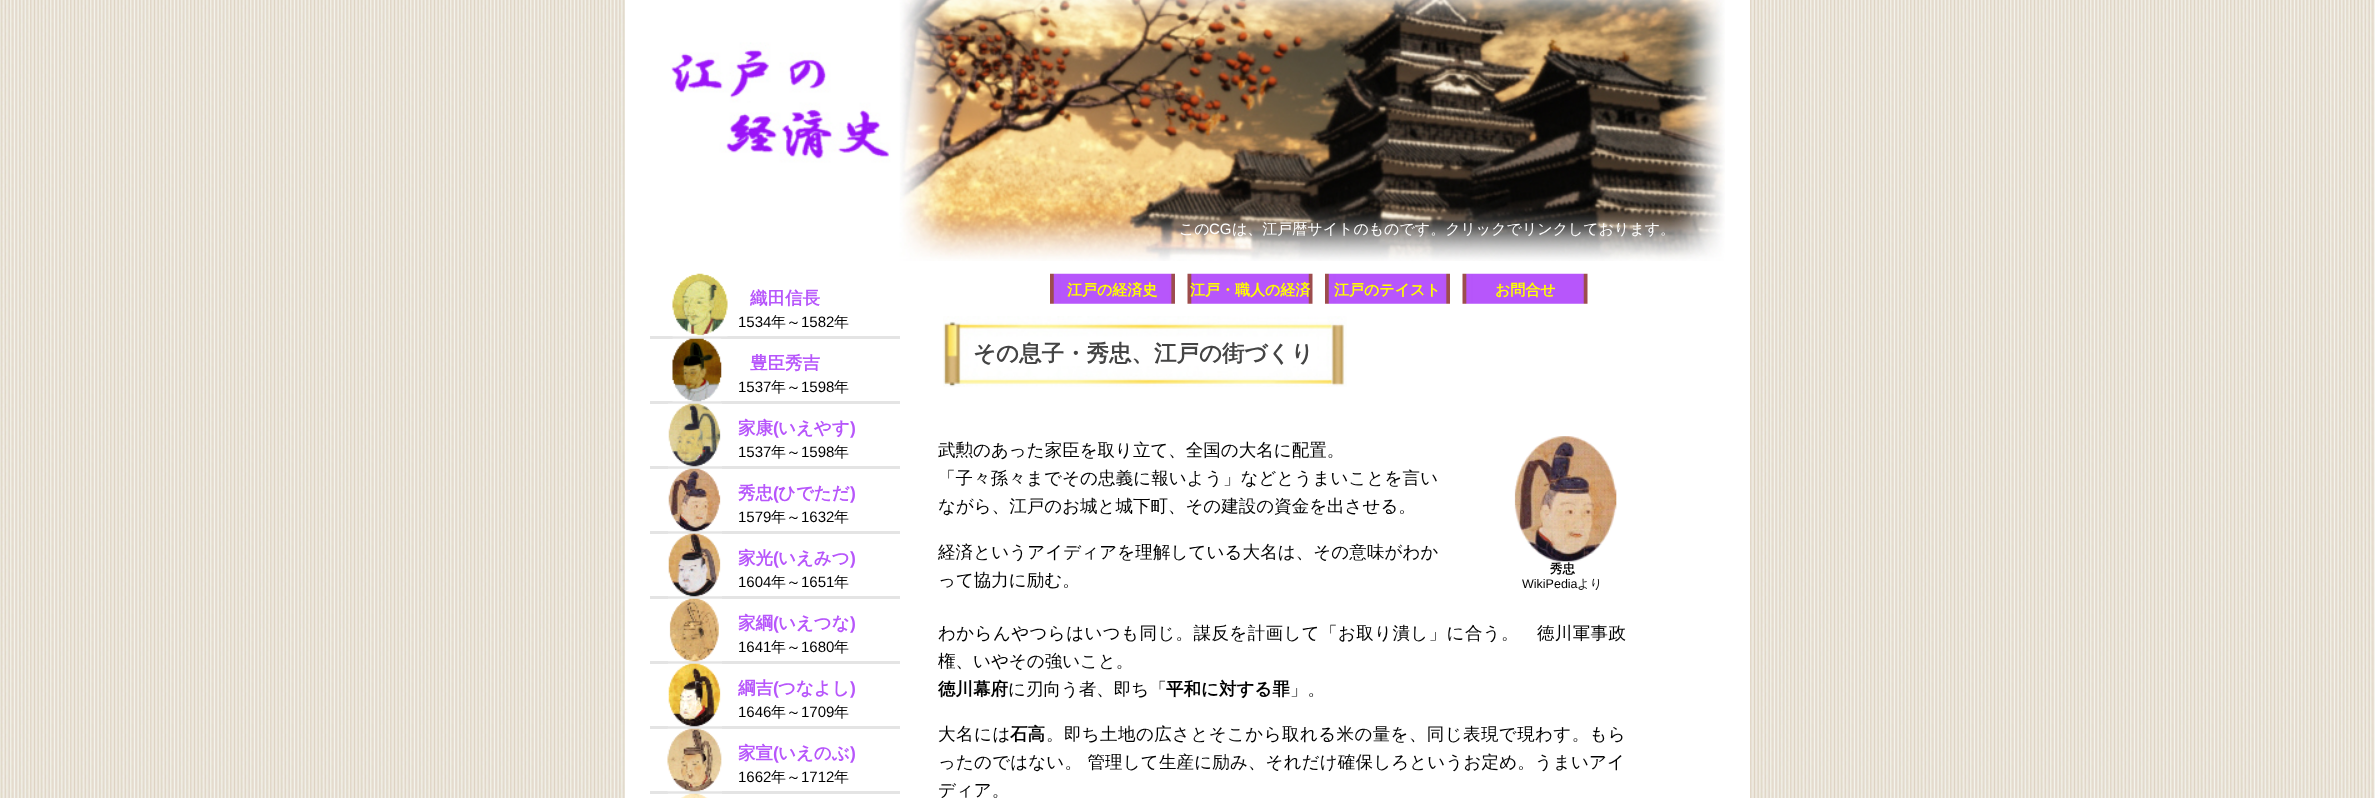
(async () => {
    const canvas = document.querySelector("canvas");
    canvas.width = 2375;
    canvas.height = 798;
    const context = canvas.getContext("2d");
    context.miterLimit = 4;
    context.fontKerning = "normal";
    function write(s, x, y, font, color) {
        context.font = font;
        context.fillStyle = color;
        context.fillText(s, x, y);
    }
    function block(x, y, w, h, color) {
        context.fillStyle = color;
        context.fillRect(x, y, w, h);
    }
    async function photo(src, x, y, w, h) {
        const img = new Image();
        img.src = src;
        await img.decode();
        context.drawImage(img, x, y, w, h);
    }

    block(0, 0, 2375, 798, "rgb(255, 255, 255)");
    await photo("media/1.png", 0, 0, 2375, 798);
    block(625, 0, 1125, 798, "rgb(255, 255, 255)");
    await photo("media/2.png", 670, 0, 1055, 261);
    write("この", 1179, 234, "500 15px WenQuanYi Zen Hei", "rgb(255, 255, 255)");
    write("CG", 1209, 234, "15px Liberation Sans", "rgb(255, 255, 255)");
    write("は、江戸暦サイトのものです。クリックでリンクしております。", 1232, 234, "500 15px WenQuanYi Zen Hei", "rgb(255, 255, 255)");
    block(650, 336, 250, 3, "rgb(228, 228, 228)");
    await photo("media/3.png", 672, 273, 56, 64);
    write("織田信長", 750, 304, "bold 17.5px WenQuanYi Zen Hei", "rgb(183, 86, 251)");
    write("1534", 738, 327, "15px Liberation Sans", "rgb(0, 0, 0)");
    write("年～", 771, 327, "500 15px WenQuanYi Zen Hei", "rgb(0, 0, 0)");
    write("1582", 801, 327, "15px Liberation Sans", "rgb(0, 0, 0)");
    write("年", 834, 327, "500 15px WenQuanYi Zen Hei", "rgb(0, 0, 0)");
    block(650, 401, 250, 3, "rgb(228, 228, 228)");
    await photo("media/4.png", 672, 338, 50, 64);
    write("豊臣秀吉", 750, 369, "bold 17.5px WenQuanYi Zen Hei", "rgb(183, 86, 251)");
    write("1537", 738, 392, "15px Liberation Sans", "rgb(0, 0, 0)");
    write("年～", 771, 392, "500 15px WenQuanYi Zen Hei", "rgb(0, 0, 0)");
    write("1598", 801, 392, "15px Liberation Sans", "rgb(0, 0, 0)");
    write("年", 834, 392, "500 15px WenQuanYi Zen Hei", "rgb(0, 0, 0)");
    block(650, 466, 250, 3, "rgb(228, 228, 228)");
    await photo("media/5.png", 668, 403, 54, 64);
    write("家康", 738, 434, "bold 17.5px WenQuanYi Zen Hei", "rgb(183, 86, 251)");
    write("(", 773, 434, "bold 17.5px Liberation Sans", "rgb(183, 86, 251)");
    write("いえやす", 778, 434, "bold 17.5px WenQuanYi Zen Hei", "rgb(183, 86, 251)");
    write(")", 850, 434, "bold 17.5px Liberation Sans", "rgb(183, 86, 251)");
    write("1537", 738, 457, "15px Liberation Sans", "rgb(0, 0, 0)");
    write("年～", 771, 457, "500 15px WenQuanYi Zen Hei", "rgb(0, 0, 0)");
    write("1598", 801, 457, "15px Liberation Sans", "rgb(0, 0, 0)");
    write("年", 834, 457, "500 15px WenQuanYi Zen Hei", "rgb(0, 0, 0)");
    block(650, 531, 250, 3, "rgb(228, 228, 228)");
    await photo("media/6.png", 668, 468, 54, 64);
    write("秀忠", 738, 499, "bold 17.5px WenQuanYi Zen Hei", "rgb(183, 86, 251)");
    write("(", 773, 499, "bold 17.5px Liberation Sans", "rgb(183, 86, 251)");
    write("ひでただ", 778, 499, "bold 17.5px WenQuanYi Zen Hei", "rgb(183, 86, 251)");
    write(")", 850, 499, "bold 17.5px Liberation Sans", "rgb(183, 86, 251)");
    write("1579", 738, 522, "15px Liberation Sans", "rgb(0, 0, 0)");
    write("年～", 771, 522, "500 15px WenQuanYi Zen Hei", "rgb(0, 0, 0)");
    write("1632", 801, 522, "15px Liberation Sans", "rgb(0, 0, 0)");
    write("年", 834, 522, "500 15px WenQuanYi Zen Hei", "rgb(0, 0, 0)");
    block(650, 596, 250, 3, "rgb(228, 228, 228)");
    await photo("media/7.png", 668, 533, 54, 64);
    write("家光", 738, 564, "bold 17.5px WenQuanYi Zen Hei", "rgb(183, 86, 251)");
    write("(", 773, 564, "bold 17.5px Liberation Sans", "rgb(183, 86, 251)");
    write("いえみつ", 778, 564, "bold 17.5px WenQuanYi Zen Hei", "rgb(183, 86, 251)");
    write(")", 850, 564, "bold 17.5px Liberation Sans", "rgb(183, 86, 251)");
    write("1604", 738, 587, "15px Liberation Sans", "rgb(0, 0, 0)");
    write("年～", 771, 587, "500 15px WenQuanYi Zen Hei", "rgb(0, 0, 0)");
    write("1651", 801, 587, "15px Liberation Sans", "rgb(0, 0, 0)");
    write("年", 834, 587, "500 15px WenQuanYi Zen Hei", "rgb(0, 0, 0)");
    block(650, 661, 250, 3, "rgb(228, 228, 228)");
    await photo("media/8.png", 668, 598, 54, 64);
    write("家綱", 738, 629, "bold 17.5px WenQuanYi Zen Hei", "rgb(183, 86, 251)");
    write("(", 773, 629, "bold 17.5px Liberation Sans", "rgb(183, 86, 251)");
    write("いえつな", 778, 629, "bold 17.5px WenQuanYi Zen Hei", "rgb(183, 86, 251)");
    write(")", 850, 629, "bold 17.5px Liberation Sans", "rgb(183, 86, 251)");
    write("1641", 738, 652, "15px Liberation Sans", "rgb(0, 0, 0)");
    write("年～", 771, 652, "500 15px WenQuanYi Zen Hei", "rgb(0, 0, 0)");
    write("1680", 801, 652, "15px Liberation Sans", "rgb(0, 0, 0)");
    write("年", 834, 652, "500 15px WenQuanYi Zen Hei", "rgb(0, 0, 0)");
    block(650, 726, 250, 3, "rgb(228, 228, 228)");
    await photo("media/9.png", 668, 663, 54, 64);
    write("綱吉", 738, 694, "bold 17.5px WenQuanYi Zen Hei", "rgb(183, 86, 251)");
    write("(", 773, 694, "bold 17.5px Liberation Sans", "rgb(183, 86, 251)");
    write("つなよし", 778, 694, "bold 17.5px WenQuanYi Zen Hei", "rgb(183, 86, 251)");
    write(")", 850, 694, "bold 17.5px Liberation Sans", "rgb(183, 86, 251)");
    write("1646", 738, 717, "15px Liberation Sans", "rgb(0, 0, 0)");
    write("年～", 771, 717, "500 15px WenQuanYi Zen Hei", "rgb(0, 0, 0)");
    write("1709", 801, 717, "15px Liberation Sans", "rgb(0, 0, 0)");
    write("年", 834, 717, "500 15px WenQuanYi Zen Hei", "rgb(0, 0, 0)");
    block(650, 791, 250, 3, "rgb(228, 228, 228)");
    await photo("media/10.png", 667, 728, 55, 64);
    write("家宣", 738, 759, "bold 17.5px WenQuanYi Zen Hei", "rgb(183, 86, 251)");
    write("(", 773, 759, "bold 17.5px Liberation Sans", "rgb(183, 86, 251)");
    write("いえのぶ", 778, 759, "bold 17.5px WenQuanYi Zen Hei", "rgb(183, 86, 251)");
    write(")", 850, 759, "bold 17.5px Liberation Sans", "rgb(183, 86, 251)");
    write("1662", 738, 782, "15px Liberation Sans", "rgb(0, 0, 0)");
    write("年～", 771, 782, "500 15px WenQuanYi Zen Hei", "rgb(0, 0, 0)");
    write("1712", 801, 782, "15px Liberation Sans", "rgb(0, 0, 0)");
    write("年", 834, 782, "500 15px WenQuanYi Zen Hei", "rgb(0, 0, 0)");
    await photo("media/11.png", 668, 793, 54, 5);
    await photo("media/12.png", 1050, 273, 125, 31);
    write("江戸の経済史", 1067, 295, "bold 15px WenQuanYi Zen Hei", "rgb(255, 255, 0)");
    await photo("media/13.png", 1187, 273, 126, 31);
    write("江戸・職人の経済", 1190, 295, "bold 15px WenQuanYi Zen Hei", "rgb(255, 255, 0)");
    await photo("media/14.png", 1325, 273, 125, 31);
    write("江戸のテイスト", 1334, 295, "bold 15px WenQuanYi Zen Hei", "rgb(255, 255, 0)");
    await photo("media/13.png", 1462, 273, 126, 31);
    write("お問合せ", 1495, 295, "bold 15px WenQuanYi Zen Hei", "rgb(255, 255, 0)");
    await photo("media/15.png", 943, 316, 404, 71);
    write("その息子・秀忠、江戸の街づくり", 973, 361, "bold 22.5px WenQuanYi Zen Hei", "rgb(68, 68, 68)");
    write("武勲のあった家臣を取り立て、全国の大名に配置。", 938, 456, "500 17.5px WenQuanYi Zen Hei", "rgb(0, 0, 0)");
    context.letterSpacing = "0.1px";
    write("「子々孫々までその忠義に報いよう」などとうまいことを言い", 938, 484, "500 17.5px WenQuanYi Zen Hei", "rgb(0, 0, 0)");
    context.letterSpacing = "0px";
    write("ながら、江戸のお城と城下町、その建設の資金を出させる。", 938, 512, "500 17.5px WenQuanYi Zen Hei", "rgb(0, 0, 0)");
    context.letterSpacing = "0.1px";
    write("経済というアイディアを理解している大名は、その意味がわか", 938, 558, "500 17.5px WenQuanYi Zen Hei", "rgb(0, 0, 0)");
    context.letterSpacing = "0px";
    write("って協力に励む。", 938, 586, "500 17.5px WenQuanYi Zen Hei", "rgb(0, 0, 0)");
    await photo("media/16.png", 1514, 436, 103, 126);
    write("秀忠", 1550, 573, "bold 12.5px WenQuanYi Zen Hei", "rgb(0, 0, 0)");
    write("WikiPedia", 1522, 588, "12.5px Liberation Sans", "rgb(0, 0, 0)");
    write("より", 1577, 588, "500 12.5px WenQuanYi Zen Hei", "rgb(0, 0, 0)");
    context.letterSpacing = "0.4px";
    write("わからんやつらはいつも同じ。謀反を計画して「お取り潰し」に合う。　徳川軍事政", 938, 639, "500 17.5px WenQuanYi Zen Hei", "rgb(0, 0, 0)");
    context.letterSpacing = "0px";
    write("権、いやその強いこと。", 938, 667, "500 17.5px WenQuanYi Zen Hei", "rgb(0, 0, 0)");
    write("徳川幕府", 938, 695, "bold 17.5px WenQuanYi Zen Hei", "rgb(0, 0, 0)");
    write("に刃向う者、即ち「", 1008, 695, "500 17.5px WenQuanYi Zen Hei", "rgb(0, 0, 0)");
    write("平和に対する罪", 1166, 695, "bold 17.5px WenQuanYi Zen Hei", "rgb(0, 0, 0)");
    write("」。", 1290, 695, "500 17.5px WenQuanYi Zen Hei", "rgb(0, 0, 0)");
    context.letterSpacing = "0.5px";
    write("大名には", 938, 740, "500 17.5px WenQuanYi Zen Hei", "rgb(0, 0, 0)");
    context.letterSpacing = "0px";
    write("石高", 1010, 740, "bold 17.5px WenQuanYi Zen Hei", "rgb(0, 0, 0)");
    context.letterSpacing = "0.4px";
    write("。即ち土地の広さとそこから取れる米の量を、同じ表現で現わす。もら", 1046, 740, "500 17.5px WenQuanYi Zen Hei", "rgb(0, 0, 0)");
    context.letterSpacing = "0.15px";
    write("ったのではない。 管理して生産に励み、それだけ確保しろというお定め。うまいアイ", 938, 768, "500 17.5px WenQuanYi Zen Hei", "rgb(0, 0, 0)");
    context.letterSpacing = "0px";
    write("ディア。", 938, 796, "500 17.5px WenQuanYi Zen Hei", "rgb(0, 0, 0)");
})();
